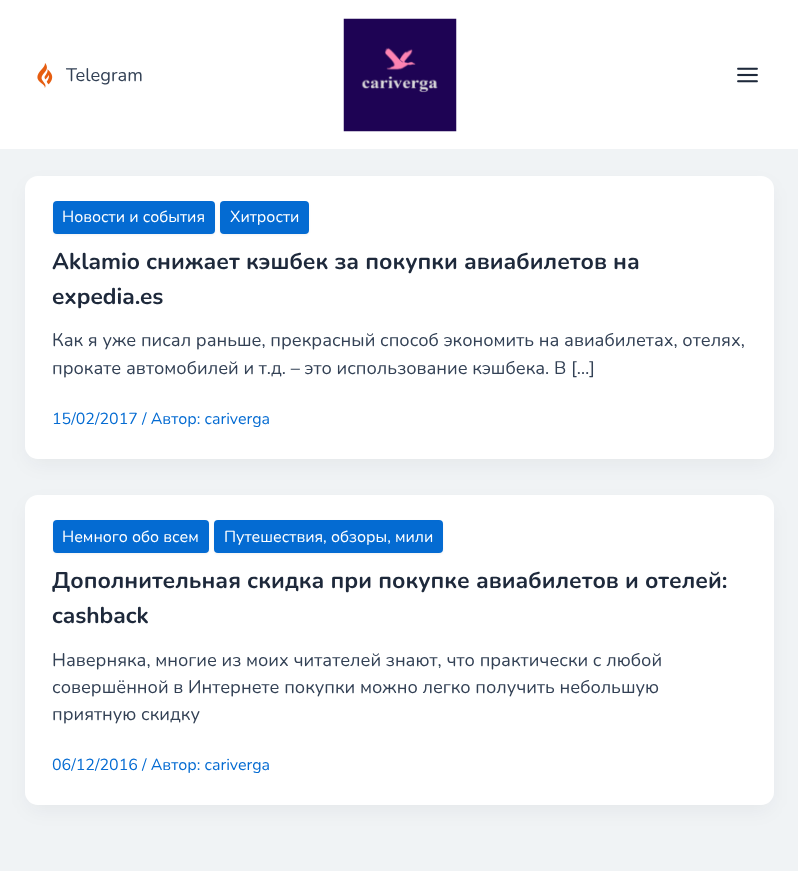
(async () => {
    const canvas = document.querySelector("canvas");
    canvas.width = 798;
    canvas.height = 871;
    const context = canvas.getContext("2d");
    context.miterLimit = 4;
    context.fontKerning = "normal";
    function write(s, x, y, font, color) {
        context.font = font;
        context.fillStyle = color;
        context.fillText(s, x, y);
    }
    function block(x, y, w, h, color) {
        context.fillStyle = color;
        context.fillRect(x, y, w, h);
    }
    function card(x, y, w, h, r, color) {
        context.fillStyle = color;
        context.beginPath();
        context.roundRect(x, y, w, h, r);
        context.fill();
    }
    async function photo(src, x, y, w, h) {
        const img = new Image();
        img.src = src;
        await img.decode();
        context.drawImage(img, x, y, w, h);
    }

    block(0, 0, 798, 871, "rgb(240, 243, 245)");
    block(0, 0, 798, 149, "rgb(255, 255, 255)");
    await photo("media/1.png", 37, 63, 16, 25);
    write("Telegram", 66, 81, "18.25px Nunito", "rgb(51, 65, 85)");
    await photo("media/2.png", 343, 18, 114, 114);
    await photo("media/3.png", 737, 67, 21, 16);
    context.fillStyle = "rgba(16, 24, 40, 0.05)";
    context.filter = "blur(9.5px)";
    context.beginPath();
    context.roundRect(28, 186, 743, 278, 10);
    context.fill();
    context.filter = "none";
    card(25, 176, 749, 283, 13, "rgb(255, 255, 255)");
    context.fillStyle = "rgba(0, 0, 0, 0.05)";
    context.filter = "blur(1px)";
    context.beginPath();
    context.roundRect(53, 203, 162, 32, 4);
    context.fill();
    context.filter = "none";
    card(53, 201, 162, 33, 4, "rgb(4, 107, 210)");
    write("Новости и события", 62, 222, "16px Nunito", "rgb(255, 255, 255)");
    context.fillStyle = "rgba(0, 0, 0, 0.05)";
    context.filter = "blur(1px)";
    context.beginPath();
    context.roundRect(220, 203, 89, 32, 4);
    context.fill();
    context.filter = "none";
    card(220, 201, 89, 33, 4, "rgb(4, 107, 210)");
    write("Хитрости", 230, 222, "16px Nunito", "rgb(255, 255, 255)");
    write("Aklamio снижает кэшбек за покупки авиабилетов на", 52, 269, "bold 22.8px Nunito", "rgb(30, 41, 59)");
    write("expedia.es", 52, 304, "bold 22.8px Nunito", "rgb(30, 41, 59)");
    write("Как я уже писал раньше, прекрасный способ экономить на авиабилетах, отелях,", 52, 346, "18.25px Nunito", "rgb(51, 65, 85)");
    write("прокате автомобилей и т.д. – это использование кэшбека. В […]", 52, 374, "18.25px Nunito", "rgb(51, 65, 85)");
    write("15/02/2017 / Автор: cariverga", 52, 424, "16px Nunito", "rgb(4, 107, 210)");
    context.fillStyle = "rgba(16, 24, 40, 0.05)";
    context.filter = "blur(9.5px)";
    context.beginPath();
    context.roundRect(28, 505, 743, 305, 10);
    context.fill();
    context.filter = "none";
    card(25, 495, 749, 310, 13, "rgb(255, 255, 255)");
    context.fillStyle = "rgba(0, 0, 0, 0.05)";
    context.filter = "blur(1px)";
    context.beginPath();
    context.roundRect(53, 521, 156, 33, 4);
    context.fill();
    context.filter = "none";
    card(53, 520, 156, 33, 4, "rgb(4, 107, 210)");
    write("Немного обо всем", 62, 542, "16px Nunito", "rgb(255, 255, 255)");
    context.fillStyle = "rgba(0, 0, 0, 0.05)";
    context.filter = "blur(1px)";
    context.beginPath();
    context.roundRect(214, 521, 229, 33, 4);
    context.fill();
    context.filter = "none";
    card(214, 520, 229, 33, 4, "rgb(4, 107, 210)");
    write("Путешествия, обзоры, мили", 224, 542, "16px Nunito", "rgb(255, 255, 255)");
    write("Дополнительная скидка при покупке авиабилетов и отелей:", 52, 588, "bold 22.8px Nunito", "rgb(30, 41, 59)");
    write("cashback", 52, 623, "bold 22.8px Nunito", "rgb(30, 41, 59)");
    write("Наверняка, многие из моих читателей знают, что практически с любой", 52, 666, "18.25px Nunito", "rgb(51, 65, 85)");
    write("совершённой в Интернете покупки можно легко получить небольшую", 52, 693, "18.25px Nunito", "rgb(51, 65, 85)");
    write("приятную скидку", 52, 720, "18.25px Nunito", "rgb(51, 65, 85)");
    write("06/12/2016 / Автор: cariverga", 52, 770, "16px Nunito", "rgb(4, 107, 210)");
})();
